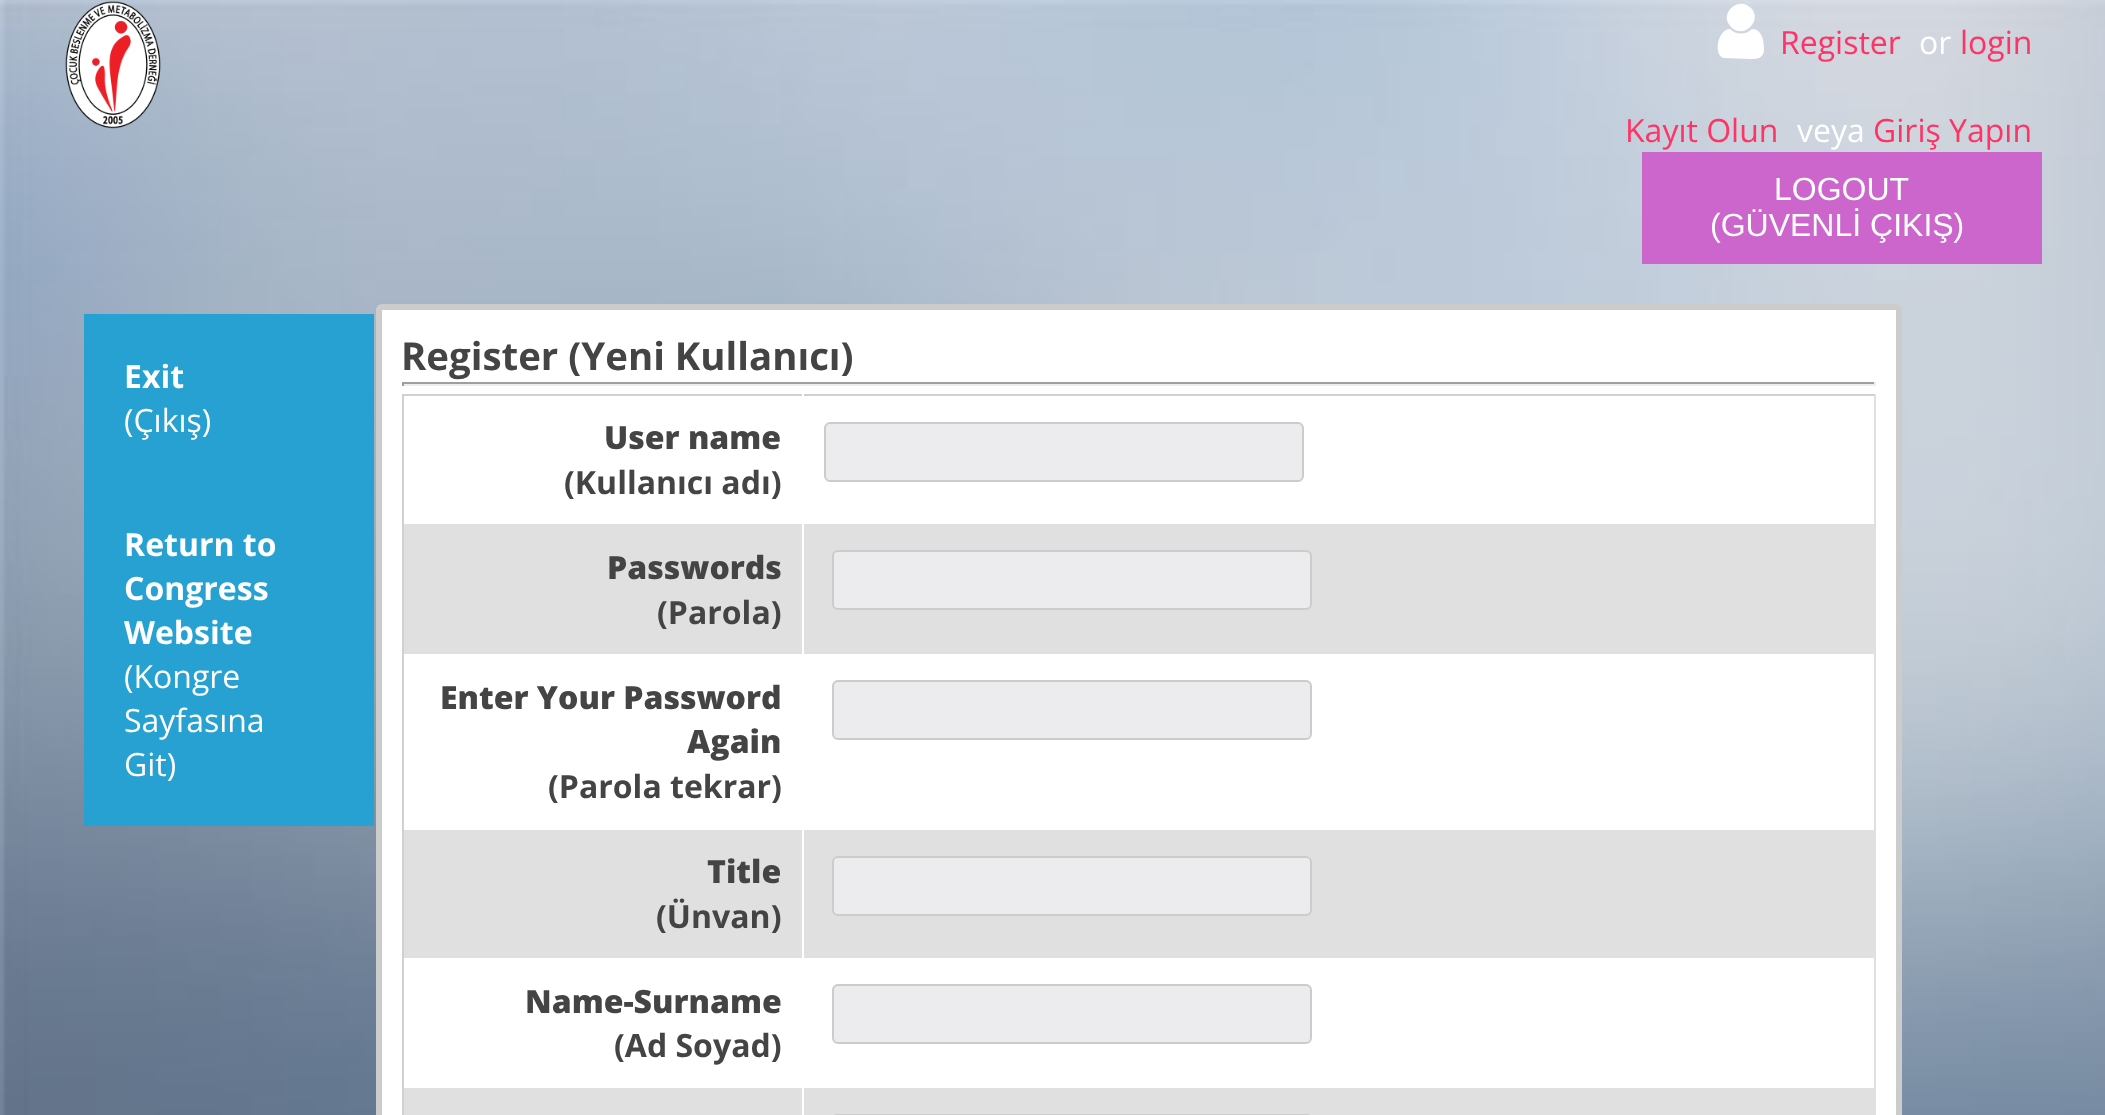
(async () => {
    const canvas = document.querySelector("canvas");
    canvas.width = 2105;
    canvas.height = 1115;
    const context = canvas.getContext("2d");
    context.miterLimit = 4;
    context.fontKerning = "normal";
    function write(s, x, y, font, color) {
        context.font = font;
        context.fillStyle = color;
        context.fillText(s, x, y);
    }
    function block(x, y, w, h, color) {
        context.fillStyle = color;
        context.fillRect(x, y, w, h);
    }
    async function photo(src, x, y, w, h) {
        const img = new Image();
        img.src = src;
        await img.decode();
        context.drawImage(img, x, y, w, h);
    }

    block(0, 0, 2105, 1115, "rgb(255, 255, 255)");
    await photo("media/1.png", 0, 0, 2105, 1115);
    await photo("media/2.png", 65, 1, 96, 128);
    context.beginPath();
    context.moveTo(1764, 49);
    context.bezierCurveTo(1764, 58, 1758, 59, 1751, 59);
    context.lineTo(1723, 58);
    context.bezierCurveTo(1713, 54, 1718, 29, 1730, 29);
    context.bezierCurveTo(1736, 35, 1746, 35, 1752, 29);
    context.bezierCurveTo(1762, 29, 1764, 41, 1764, 49);
    context.closePath();
    context.moveTo(1751, 8);
    context.bezierCurveTo(1763, 20, 1744, 40, 1731, 27);
    context.bezierCurveTo(1718, 14, 1738, -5, 1751, 8);
    context.closePath();
    context.fill();
    write("Register", 1780, 54, "32px Open Sans", "rgb(255, 51, 102)");
    write("or", 1919, 54, "32px Open Sans", "rgb(255, 255, 255)");
    write("login", 1960, 54, "32px Open Sans", "rgb(255, 51, 102)");
    write("Kayıt Olun", 1625, 142, "32px Open Sans", "rgb(255, 51, 102)");
    write("veya", 1797, 142, "32px Open Sans", "rgb(255, 255, 255)");
    write("Giriş Yapın", 1873, 142, "32px Open Sans", "rgb(255, 51, 102)");
    block(1642, 152, 400, 112, "rgb(204, 102, 204)");
    write("LOGOUT", 1774, 200, "32px Liberation Sans", "rgb(255, 255, 255)");
    write("(GÜVENLİ ÇIKIŞ)", 1710, 236, "32px Liberation Sans", "rgb(255, 255, 255)");
    block(84, 314, 290, 512, "rgb(38, 161, 209)");
    write("Exit", 124, 388, "bold 32px Open Sans", "rgb(255, 255, 255)");
    write("(Çıkış)", 124, 432, "32px Open Sans", "rgb(255, 255, 255)");
    write("Return to", 124, 556, "bold 32px Open Sans", "rgb(255, 255, 255)");
    write("Congress", 124, 600, "bold 32px Open Sans", "rgb(255, 255, 255)");
    write("Website", 124, 644, "bold 32px Open Sans", "rgb(255, 255, 255)");
    write("(Kongre", 124, 688, "32px Open Sans", "rgb(255, 255, 255)");
    write("Sayfasına", 124, 732, "32px Open Sans", "rgb(255, 255, 255)");
    write("Git)", 124, 776, "32px Open Sans", "rgb(255, 255, 255)");
    context.beginPath();
    context.roundRect(379, 307, 1520, 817, 3);
    context.fill();
    context.strokeStyle = "rgb(204, 204, 204)";
    context.lineWidth = 6;
    context.stroke();
    write("Register (Yeni Kullanıcı)", 401, 370, "bold 38.4px Open Sans", "rgb(68, 68, 68)");
    block(402, 382, 1474, 2, "rgb(159, 159, 159)");
    block(1874, 382, 2, 4, "rgb(238, 238, 238)");
    block(402, 384, 1474, 2, "rgb(238, 238, 238)");
    block(402, 382, 2, 4, "rgb(159, 159, 159)");
    block(402, 394, 1474, 2, "rgb(208, 208, 208)");
    block(402, 394, 2, 721, "rgb(208, 208, 208)");
    block(802, 394, 2, 2, "rgb(255, 255, 255)");
    write("User name", 604, 449, "800 32px Open Sans", "rgb(68, 68, 68)");
    write("(Kullanıcı adı)", 564, 494, "bold 32px Open Sans", "rgb(68, 68, 68)");
    context.fillStyle = "rgb(236, 235, 237)";
    context.beginPath();
    context.roundRect(825, 423, 478, 58, 5);
    context.fill();
    context.lineWidth = 2;
    context.stroke();
    block(404, 524, 1470, 130, "rgb(224, 224, 224)");
    block(802, 524, 2, 132, "rgb(255, 255, 255)");
    write("Passwords", 607, 579, "800 32px Open Sans", "rgb(68, 68, 68)");
    write("(Parola)", 657, 624, "bold 32px Open Sans", "rgb(68, 68, 68)");
    context.fillStyle = "rgb(236, 235, 237)";
    context.beginPath();
    context.roundRect(833, 551, 478, 58, 5);
    context.fill();
    context.stroke();
    write("Enter Your Password", 440, 709, "800 32px Open Sans", "rgb(68, 68, 68)");
    write("Again", 687, 753, "800 32px Open Sans", "rgb(68, 68, 68)");
    write("(Parola tekrar)", 548, 798, "bold 32px Open Sans", "rgb(68, 68, 68)");
    context.fillStyle = "rgb(236, 235, 237)";
    context.beginPath();
    context.roundRect(833, 681, 478, 58, 5);
    context.fill();
    context.stroke();
    block(404, 830, 1470, 128, "rgb(224, 224, 224)");
    block(802, 828, 2, 132, "rgb(255, 255, 255)");
    write("Title", 707, 883, "800 32px Open Sans", "rgb(68, 68, 68)");
    write("(Ünvan)", 656, 928, "bold 32px Open Sans", "rgb(68, 68, 68)");
    context.fillStyle = "rgb(236, 235, 237)";
    context.beginPath();
    context.roundRect(833, 857, 478, 58, 5);
    context.fill();
    context.stroke();
    write("Name-Surname", 525, 1013, "800 32px Open Sans", "rgb(68, 68, 68)");
    write("(Ad Soyad)", 614, 1057, "bold 32px Open Sans", "rgb(68, 68, 68)");
    block(404, 1088, 1472, 27, "rgb(224, 224, 224)");
    block(1874, 394, 2, 696, "rgb(224, 224, 224)");
    context.fillStyle = "rgb(236, 235, 237)";
    context.beginPath();
    context.roundRect(833, 985, 478, 58, 5);
    context.fill();
    context.stroke();
    block(802, 1088, 2, 27, "rgb(255, 255, 255)");
    context.beginPath();
    context.roundRect(833, 1115, 478, 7, 5);
    context.stroke();
})();
